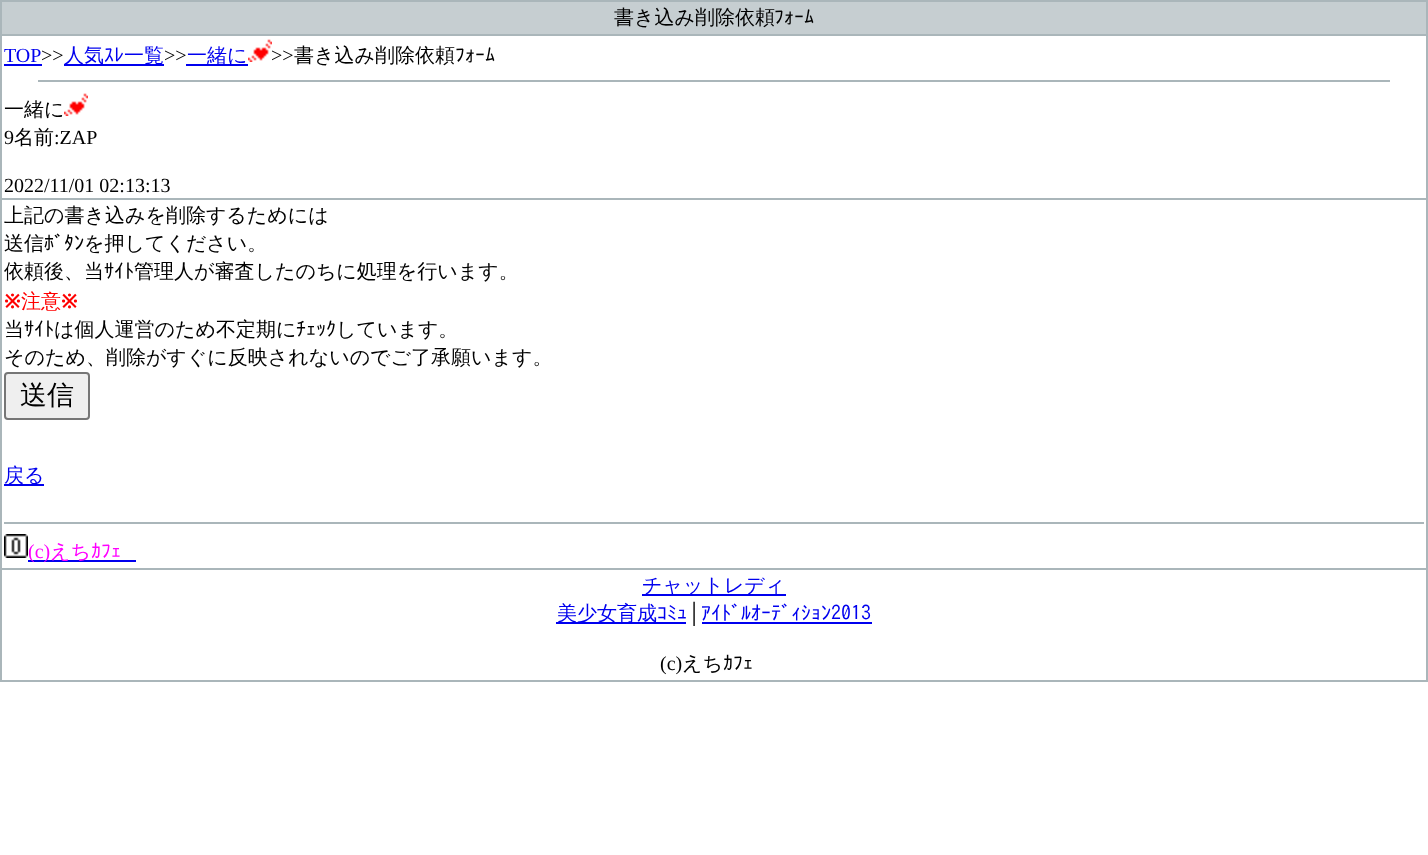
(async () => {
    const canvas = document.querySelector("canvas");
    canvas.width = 1428;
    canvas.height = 855;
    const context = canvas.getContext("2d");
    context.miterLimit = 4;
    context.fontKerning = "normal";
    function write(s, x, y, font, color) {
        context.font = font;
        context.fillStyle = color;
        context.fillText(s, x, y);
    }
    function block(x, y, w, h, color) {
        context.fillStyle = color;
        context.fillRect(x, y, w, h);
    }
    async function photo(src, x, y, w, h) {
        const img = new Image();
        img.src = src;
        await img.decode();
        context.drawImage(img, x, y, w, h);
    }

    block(0, 0, 1428, 855, "rgb(255, 255, 255)");
    block(0, 0, 1428, 682, "rgb(170, 182, 186)");
    block(2, 2, 1424, 32, "rgb(198, 206, 209)");
    write("書き込み削除依頼", 614, 24, "500 20px WenQuanYi Zen Hei", "rgb(0, 0, 0)");
    write("ﾌｫｰﾑ", 774, 24, "20px IPAGothic", "rgb(0, 0, 0)");
    block(2, 36, 1424, 162, "rgb(255, 255, 255)");
    write("TOP", 4, 62, "20px Liberation Serif", "rgb(0, 0, 238)");
    block(4, 64, 38, 2, "rgb(0, 0, 238)");
    write(">>", 41, 62, "20px Liberation Serif", "rgb(0, 0, 0)");
    block(64, 64, 100, 2, "rgb(0, 0, 238)");
    write("人気", 64, 62, "500 20px WenQuanYi Zen Hei", "rgb(0, 0, 238)");
    write("ｽﾚ", 104, 62, "20px IPAGothic", "rgb(0, 0, 238)");
    write("一覧", 124, 62, "500 20px WenQuanYi Zen Hei", "rgb(0, 0, 238)");
    write(">>", 164, 62, "20px Liberation Serif", "rgb(0, 0, 0)");
    block(186, 64, 62, 2, "rgb(0, 0, 238)");
    write("一緒に", 187, 62, "500 20px WenQuanYi Zen Hei", "rgb(0, 0, 238)");
    await photo("media/1.png", 248, 39, 24, 23);
    write(">>", 271, 62, "20px Liberation Serif", "rgb(0, 0, 0)");
    write("書き込み削除依頼", 294, 62, "500 20px WenQuanYi Zen Hei", "rgb(0, 0, 0)");
    write("ﾌｫｰﾑ", 455, 62, "20px IPAGothic", "rgb(0, 0, 0)");
    block(38, 80, 1352, 2, "rgb(170, 182, 186)");
    write("一緒に", 4, 116, "500 20px WenQuanYi Zen Hei", "rgb(0, 0, 0)");
    await photo("media/1.png", 64, 93, 24, 23);
    write("9", 4, 144, "20px Liberation Serif", "rgb(0, 0, 0)");
    write("名前", 14, 144, "500 20px WenQuanYi Zen Hei", "rgb(0, 0, 0)");
    write(":ZAP", 54, 144, "20px Liberation Serif", "rgb(0, 0, 0)");
    write("2022/11/01 02:13:13", 4, 192, "20px Liberation Serif", "rgb(0, 0, 0)");
    block(2, 200, 1424, 368, "rgb(255, 255, 255)");
    write("上記の書き込みを削除するためには", 4, 222, "500 20px WenQuanYi Zen Hei", "rgb(0, 0, 0)");
    write("送信", 4, 250, "500 20px WenQuanYi Zen Hei", "rgb(0, 0, 0)");
    write("ﾎﾞﾀﾝ", 44, 250, "20px IPAGothic", "rgb(0, 0, 0)");
    write("を押してください。", 84, 250, "500 20px WenQuanYi Zen Hei", "rgb(0, 0, 0)");
    write("依頼後、当", 4, 278, "500 20px WenQuanYi Zen Hei", "rgb(0, 0, 0)");
    write("ｻｲﾄ", 104, 278, "20px IPAGothic", "rgb(0, 0, 0)");
    write("管理人が審査したのちに処理を行います。", 134, 278, "500 20px WenQuanYi Zen Hei", "rgb(0, 0, 0)");
    write("※", 4, 308, "bold 20px Noto Sans", "rgb(255, 0, 0)");
    write("注意", 21, 308, "500 20px WenQuanYi Zen Hei", "rgb(255, 0, 0)");
    write("※", 61, 308, "bold 20px Noto Sans", "rgb(255, 0, 0)");
    write("当", 4, 336, "500 20px WenQuanYi Zen Hei", "rgb(0, 0, 0)");
    write("ｻｲﾄ", 24, 336, "20px IPAGothic", "rgb(0, 0, 0)");
    write("は個人運営のため不定期に", 54, 336, "500 20px WenQuanYi Zen Hei", "rgb(0, 0, 0)");
    write("ﾁｪｯｸ", 296, 336, "20px IPAGothic", "rgb(0, 0, 0)");
    write("しています。", 336, 336, "500 20px WenQuanYi Zen Hei", "rgb(0, 0, 0)");
    write("そのため、削除がすぐに反映されないのでご了承願います。", 4, 364, "500 20px WenQuanYi Zen Hei", "rgb(0, 0, 0)");
    context.fillStyle = "rgb(239, 239, 239)";
    context.beginPath();
    context.roundRect(5, 373, 84, 46, 3);
    context.fill();
    context.strokeStyle = "rgb(118, 118, 118)";
    context.lineWidth = 2;
    context.stroke();
    write("送信", 20, 404, "500 27px WenQuanYi Zen Hei", "rgb(0, 0, 0)");
    block(4, 484, 40, 2, "rgb(0, 0, 238)");
    write("戻る", 4, 482, "500 20px WenQuanYi Zen Hei", "rgb(0, 0, 238)");
    block(4, 522, 1420, 2, "rgb(170, 182, 186)");
    await photo("media/2.png", 4, 534, 24, 24);
    block(28, 560, 108, 2, "rgb(0, 0, 238)");
    write("(c)", 28, 558, "20px Liberation Serif", "rgb(255, 0, 255)");
    write("えち", 50, 558, "500 20px WenQuanYi Zen Hei", "rgb(255, 0, 255)");
    write("ｶﾌｪ", 91, 558, "20px IPAGothic", "rgb(255, 0, 255)");
    block(2, 570, 1424, 110, "rgb(255, 255, 255)");
    block(642, 594, 144, 2, "rgb(0, 0, 238)");
    write("チャットレディ", 642, 592, "500 20px WenQuanYi Zen Hei", "rgb(0, 0, 238)");
    block(556, 622, 130, 2, "rgb(0, 0, 238)");
    write("美少女育成", 557, 620, "500 20px WenQuanYi Zen Hei", "rgb(0, 0, 238)");
    write("ｺﾐｭ", 657, 620, "20px IPAGothic", "rgb(0, 0, 238)");
    write("│", 687, 620, "20px Liberation Serif", "rgb(0, 0, 0)");
    write("ｱｲﾄﾞﾙｵｰﾃﾞｨｼｮﾝ2013", 701, 620, "20px IPAGothic", "rgb(0, 0, 238)");
    block(702, 622, 170, 2, "rgb(0, 0, 238)");
    write("(c)", 660, 670, "20px Liberation Serif", "rgb(0, 0, 0)");
    write("えち", 682, 670, "500 20px WenQuanYi Zen Hei", "rgb(0, 0, 0)");
    write("ｶﾌｪ", 723, 670, "20px IPAGothic", "rgb(0, 0, 0)");
})();
